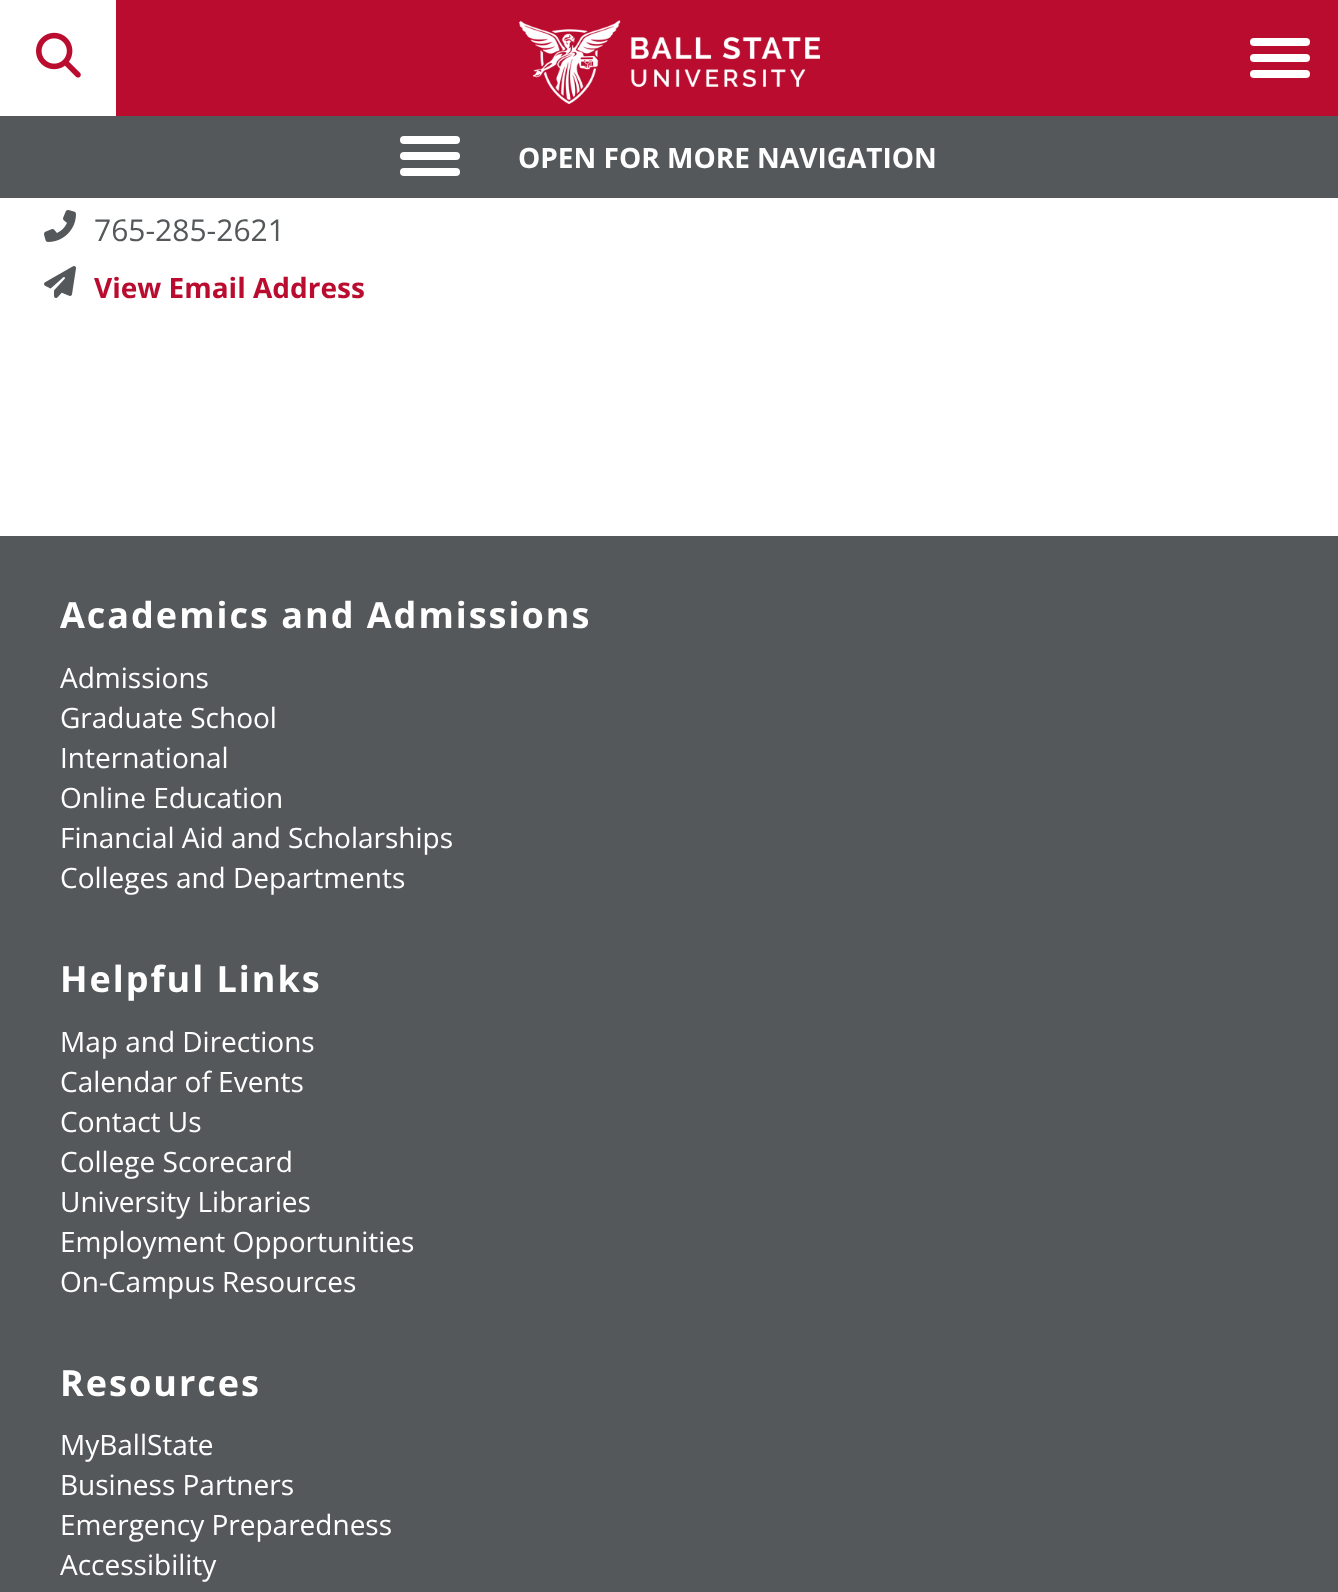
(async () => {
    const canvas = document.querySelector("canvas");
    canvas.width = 1338;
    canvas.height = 1592;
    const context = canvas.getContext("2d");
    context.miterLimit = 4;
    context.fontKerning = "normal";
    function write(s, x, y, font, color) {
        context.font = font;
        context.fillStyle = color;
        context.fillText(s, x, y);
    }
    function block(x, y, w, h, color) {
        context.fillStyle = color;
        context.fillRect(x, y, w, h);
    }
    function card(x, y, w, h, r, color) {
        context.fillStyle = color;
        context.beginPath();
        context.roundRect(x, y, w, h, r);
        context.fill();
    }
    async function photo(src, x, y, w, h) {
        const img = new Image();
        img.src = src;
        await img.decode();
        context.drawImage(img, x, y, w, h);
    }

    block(0, 0, 1338, 1592, "rgb(255, 255, 255)");
    block(116, 0, 1222, 116, "rgb(186, 12, 47)");
    await photo("media/1.png", 36, 32, 45, 46);
    await photo("media/2.png", 519, 20, 301, 84);
    card(1250, 38, 60, 8, 4, "rgb(255, 255, 255)");
    card(1250, 54, 60, 8, 4, "rgb(255, 255, 255)");
    card(1250, 70, 60, 8, 4, "rgb(255, 255, 255)");
    block(0, 116, 1338, 82, "rgb(84, 88, 90)");
    card(400, 136, 60, 8, 4, "rgb(255, 255, 255)");
    card(400, 152, 60, 8, 4, "rgb(255, 255, 255)");
    card(400, 168, 60, 8, 4, "rgb(255, 255, 255)");
    write("OPEN FOR MORE NAVIGATION", 518, 168, "bold 28px Open Sans", "rgb(255, 255, 255)");
    await photo("media/3.png", 44, 210, 32, 32);
    write("765-285-2621", 94, 241, "30px Open Sans", "rgb(84, 88, 90)");
    await photo("media/4.png", 44, 266, 32, 32);
    write("View Email Address", 94, 298, "bold 28px Open Sans", "rgb(186, 12, 47)");
    block(0, 536, 1338, 1056, "rgb(84, 88, 90)");
    context.letterSpacing = "2px";
    write("Academics and Admissions", 60, 628, "bold 36px Open Sans", "rgb(255, 255, 255)");
    context.letterSpacing = "0px";
    write("Admissions", 60, 688, "28px Open Sans", "rgb(255, 255, 255)");
    write("Graduate School", 60, 728, "28px Open Sans", "rgb(255, 255, 255)");
    write("International", 60, 768, "28px Open Sans", "rgb(255, 255, 255)");
    write("Online Education", 60, 808, "28px Open Sans", "rgb(255, 255, 255)");
    write("Financial Aid and Scholarships", 60, 848, "28px Open Sans", "rgb(255, 255, 255)");
    write("Colleges and Departments", 60, 888, "28px Open Sans", "rgb(255, 255, 255)");
    context.letterSpacing = "2px";
    write("Helpful Links", 60, 992, "bold 36px Open Sans", "rgb(255, 255, 255)");
    context.letterSpacing = "0px";
    write("Map and Directions", 60, 1052, "28px Open Sans", "rgb(255, 255, 255)");
    write("Calendar of Events", 60, 1092, "28px Open Sans", "rgb(255, 255, 255)");
    write("Contact Us", 60, 1132, "28px Open Sans", "rgb(255, 255, 255)");
    write("College Scorecard", 60, 1172, "28px Open Sans", "rgb(255, 255, 255)");
    write("University Libraries", 60, 1212, "28px Open Sans", "rgb(255, 255, 255)");
    write("Employment Opportunities", 60, 1252, "28px Open Sans", "rgb(255, 255, 255)");
    write("On-Campus Resources", 60, 1292, "28px Open Sans", "rgb(255, 255, 255)");
    context.letterSpacing = "2px";
    write("Resources", 60, 1396, "bold 36px Open Sans", "rgb(255, 255, 255)");
    context.letterSpacing = "0px";
    write("MyBallState", 60, 1455, "28px Open Sans", "rgb(255, 255, 255)");
    write("Business Partners", 60, 1495, "28px Open Sans", "rgb(255, 255, 255)");
    write("Emergency Preparedness", 60, 1535, "28px Open Sans", "rgb(255, 255, 255)");
    write("Accessibility", 60, 1575, "28px Open Sans", "rgb(255, 255, 255)");
})();
